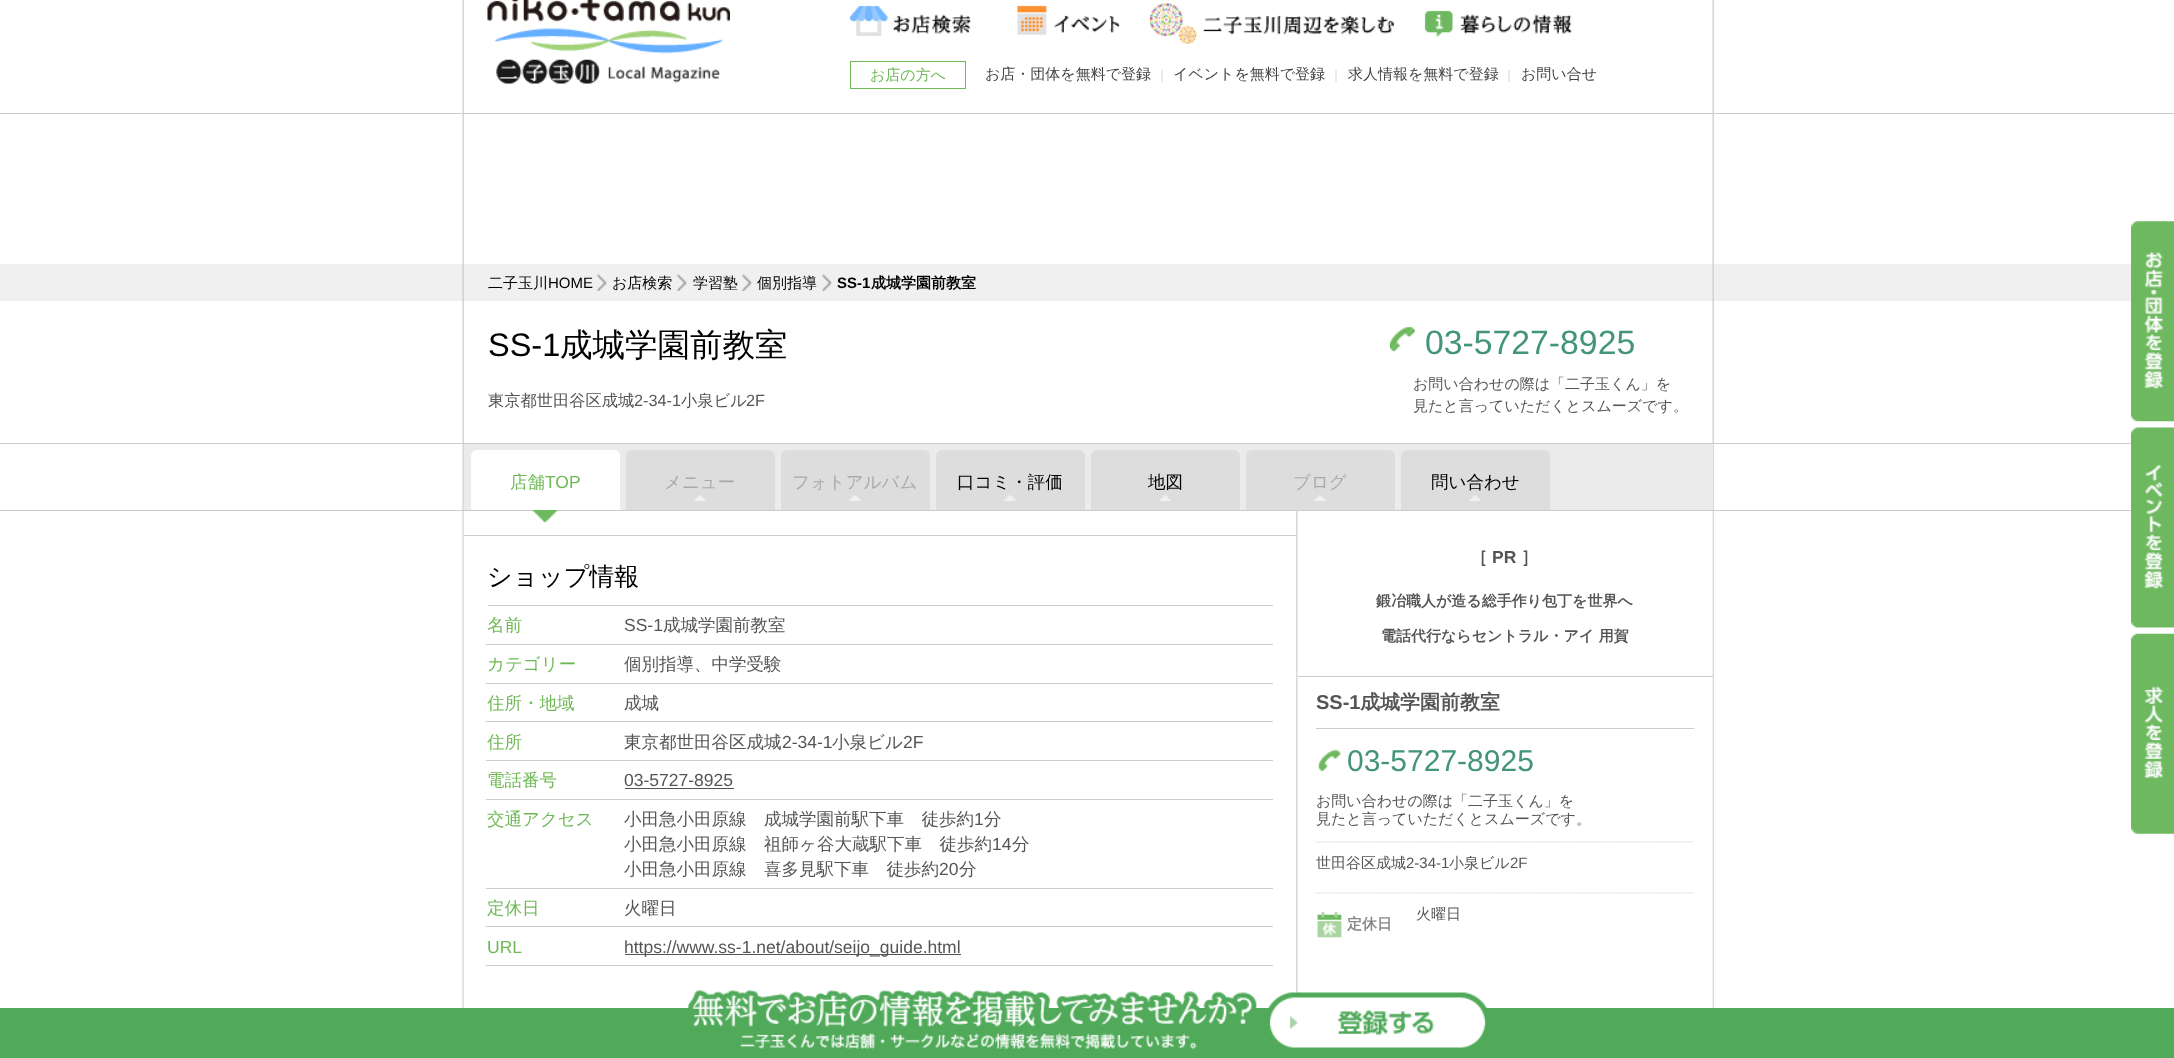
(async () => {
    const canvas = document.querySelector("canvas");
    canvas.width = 2174;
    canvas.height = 1058;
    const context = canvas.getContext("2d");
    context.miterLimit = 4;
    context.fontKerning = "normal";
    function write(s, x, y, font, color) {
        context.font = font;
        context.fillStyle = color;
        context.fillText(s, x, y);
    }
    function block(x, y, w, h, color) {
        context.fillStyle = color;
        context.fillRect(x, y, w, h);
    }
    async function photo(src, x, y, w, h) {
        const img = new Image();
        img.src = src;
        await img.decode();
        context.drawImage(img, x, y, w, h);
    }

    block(0, 0, 2174, 1058, "rgb(255, 255, 255)");
    await photo("media/1.png", 462, 0, 1252, 1008);
    await photo("media/2.png", 487, 0, 243, 84);
    await photo("media/3.png", 850, 5, 122, 31);
    await photo("media/4.png", 1017, 5, 104, 30);
    await photo("media/5.png", 1150, 3, 244, 41);
    await photo("media/6.png", 1424, 10, 148, 28);
    context.strokeStyle = "rgb(110, 185, 85)";
    context.strokeRect(850.5, 61.5, 115, 27);
    write("お店の方へ", 870, 80, "500 15px WenQuanYi Zen Hei", "rgb(110, 185, 85)");
    write("お店・団体を無料で登録", 985, 79, "500 15px WenQuanYi Zen Hei", "rgb(68, 68, 68)");
    write("｜", 1156, 79, "500 12px WenQuanYi Zen Hei", "rgb(204, 204, 204)");
    write("イベントを無料で登録", 1173, 79, "500 15px WenQuanYi Zen Hei", "rgb(68, 68, 68)");
    write("｜", 1330, 79, "500 12px WenQuanYi Zen Hei", "rgb(204, 204, 204)");
    write("求人情報を無料で登録", 1348, 79, "500 15px WenQuanYi Zen Hei", "rgb(68, 68, 68)");
    write("｜", 1503, 79, "500 12px WenQuanYi Zen Hei", "rgb(204, 204, 204)");
    write("お問い合せ", 1521, 79, "500 15px WenQuanYi Zen Hei", "rgb(68, 68, 68)");
    block(0, 113, 2174, 1, "rgb(204, 204, 204)");
    block(0, 264, 2131, 37, "rgb(240, 240, 240)");
    await photo("media/7.png", 462, 263, 1252, 38);
    write("二子玉川", 488, 288, "500 15px WenQuanYi Zen Hei", "rgb(0, 0, 0)");
    write("HOME", 548, 288, "15px Liberation Sans", "rgb(0, 0, 0)");
    await photo("media/8.png", 597, 274, 10, 17);
    write("お店検索", 612, 288, "500 15px WenQuanYi Zen Hei", "rgb(0, 0, 0)");
    await photo("media/8.png", 677, 274, 10, 17);
    write("学習塾", 693, 288, "500 15px WenQuanYi Zen Hei", "rgb(0, 0, 0)");
    await photo("media/8.png", 742, 274, 10, 17);
    write("個別指導", 757, 288, "500 15px WenQuanYi Zen Hei", "rgb(0, 0, 0)");
    await photo("media/9.png", 822, 274, 10, 17);
    write("SS-1", 837, 288, "bold 15px Liberation Sans", "rgb(0, 0, 0)");
    write("成城学園前教室", 871, 288, "bold 15px WenQuanYi Zen Hei", "rgb(0, 0, 0)");
    await photo("media/10.png", 2131, 221, 43, 201);
    await photo("media/11.png", 2131, 427, 43, 201);
    await photo("media/12.png", 2131, 633, 43, 201);
    block(0, 443, 2131, 1, "rgb(204, 204, 204)");
    write("SS-1", 488, 356, "32.5px Liberation Sans", "rgb(0, 0, 0)");
    write("成城学園前教室", 560, 356, "500 32.5px WenQuanYi Zen Hei", "rgb(0, 0, 0)");
    write("東京都世田谷区成城", 488, 406, "500 16.25px WenQuanYi Zen Hei", "rgb(85, 85, 85)");
    write("2-34-1", 634, 406, "16.25px Liberation Sans", "rgb(85, 85, 85)");
    write("小泉ビル", 681, 406, "500 16.25px WenQuanYi Zen Hei", "rgb(85, 85, 85)");
    write("2F", 746, 406, "16.25px Liberation Sans", "rgb(85, 85, 85)");
    await photo("media/13.png", 1390, 327, 25, 25);
    write("03-5727-8925", 1425, 354, "33.75px Liberation Sans", "rgb(66, 148, 122)");
    write("お問い合わせの際は「二子玉くん」を", 1413, 389, "500 15px WenQuanYi Zen Hei", "rgb(85, 85, 85)");
    write("見たと言っていただくとスムーズです。", 1413, 411, "500 15px WenQuanYi Zen Hei", "rgb(85, 85, 85)");
    block(0, 510, 2131, 1, "rgb(204, 204, 204)");
    block(464, 444, 1249, 66, "rgb(235, 235, 235)");
    await photo("media/17.png", 463, 511, 1250, 497);
    await photo("media/14.png", 532, 510, 26, 13);
    context.fillStyle = "rgb(255, 255, 255)";
    context.beginPath();
    context.roundRect(471, 450, 149, 60, [6, 6, 0, 0]);
    context.fill();
    write("店舗", 510, 488, "500 17.5px WenQuanYi Zen Hei", "rgb(110, 185, 85)");
    write("TOP", 545, 488, "17.5px Liberation Sans", "rgb(110, 185, 85)");
    context.fillStyle = "rgb(221, 221, 221)";
    context.beginPath();
    context.roundRect(626, 450, 149, 60, [6, 6, 0, 0]);
    context.fill();
    await photo("media/15.png", 694, 495, 12, 6);
    write("メニュー", 664, 488, "500 17.5px WenQuanYi Zen Hei", "rgb(170, 170, 170)");
    context.fillStyle = "rgb(221, 221, 221)";
    context.beginPath();
    context.roundRect(781, 450, 149, 60, [6, 6, 0, 0]);
    context.fill();
    await photo("media/15.png", 849, 495, 12, 6);
    write("フォトアルバム", 792, 488, "500 17.5px WenQuanYi Zen Hei", "rgb(170, 170, 170)");
    context.fillStyle = "rgb(221, 221, 221)";
    context.beginPath();
    context.roundRect(936, 450, 149, 60, [6, 6, 0, 0]);
    context.fill();
    await photo("media/15.png", 1004, 495, 12, 6);
    write("口コミ・評価", 957, 488, "500 17.5px WenQuanYi Zen Hei", "rgb(0, 0, 0)");
    context.fillStyle = "rgb(221, 221, 221)";
    context.beginPath();
    context.roundRect(1091, 450, 149, 60, [6, 6, 0, 0]);
    context.fill();
    await photo("media/15.png", 1159, 495, 12, 6);
    write("地図", 1148, 488, "500 17.5px WenQuanYi Zen Hei", "rgb(0, 0, 0)");
    context.fillStyle = "rgb(221, 221, 221)";
    context.beginPath();
    context.roundRect(1246, 450, 149, 60, [6, 6, 0, 0]);
    context.fill();
    await photo("media/16.png", 1314, 495, 12, 6);
    write("ブログ", 1293, 488, "500 17.5px WenQuanYi Zen Hei", "rgb(170, 170, 170)");
    context.fillStyle = "rgb(221, 221, 221)";
    context.beginPath();
    context.roundRect(1401, 450, 149, 60, [6, 6, 0, 0]);
    context.fill();
    await photo("media/16.png", 1469, 495, 12, 6);
    write("問い合わせ", 1431, 488, "500 17.5px WenQuanYi Zen Hei", "rgb(0, 0, 0)");
    block(464, 535, 832, 1, "rgb(204, 204, 204)");
    write("ショップ情報", 487, 585, "500 25px WenQuanYi Zen Hei", "rgb(0, 0, 0)");
    block(488, 605, 785, 1, "rgb(204, 204, 204)");
    write("名前", 487, 631, "500 17.5px WenQuanYi Zen Hei", "rgb(110, 185, 85)");
    block(486, 644, 787, 1, "rgb(204, 204, 204)");
    write("SS-1", 624, 631, "17.5px Liberation Sans", "rgb(85, 85, 85)");
    write("成城学園前教室", 663, 631, "500 17.5px WenQuanYi Zen Hei", "rgb(85, 85, 85)");
    write("カテゴリー", 487, 670, "500 17.5px WenQuanYi Zen Hei", "rgb(110, 185, 85)");
    block(486, 683, 787, 1, "rgb(204, 204, 204)");
    write("個別指導、中学受験", 624, 670, "500 17.5px WenQuanYi Zen Hei", "rgb(85, 85, 85)");
    write("住所・地域", 487, 709, "500 17.5px WenQuanYi Zen Hei", "rgb(110, 185, 85)");
    block(486, 721, 787, 1, "rgb(204, 204, 204)");
    write("成城", 624, 709, "500 17.5px WenQuanYi Zen Hei", "rgb(85, 85, 85)");
    write("住所", 487, 748, "500 17.5px WenQuanYi Zen Hei", "rgb(110, 185, 85)");
    block(486, 760, 787, 1, "rgb(204, 204, 204)");
    write("東京都世田谷区成城", 624, 748, "500 17.5px WenQuanYi Zen Hei", "rgb(85, 85, 85)");
    write("2-34-1", 782, 748, "17.5px Liberation Sans", "rgb(85, 85, 85)");
    write("小泉ビル", 832, 748, "500 17.5px WenQuanYi Zen Hei", "rgb(85, 85, 85)");
    write("2F", 903, 748, "17.5px Liberation Sans", "rgb(85, 85, 85)");
    write("電話番号", 487, 786, "500 17.5px WenQuanYi Zen Hei", "rgb(110, 185, 85)");
    block(486, 799, 787, 1, "rgb(204, 204, 204)");
    write("03-5727-8925", 624, 786, "17.5px Liberation Sans", "rgb(85, 85, 85)");
    block(625, 788, 109, 1, "rgb(85, 85, 85)");
    write("交通アクセス", 487, 825, "500 17.5px WenQuanYi Zen Hei", "rgb(110, 185, 85)");
    block(486, 888, 787, 1, "rgb(204, 204, 204)");
    write("小田急小田原線　成城学園前駅下車　徒歩約", 624, 825, "500 17.5px WenQuanYi Zen Hei", "rgb(85, 85, 85)");
    write("1", 974, 825, "17.5px Liberation Sans", "rgb(85, 85, 85)");
    write("分", 984, 825, "500 17.5px WenQuanYi Zen Hei", "rgb(85, 85, 85)");
    write("小田急小田原線　祖師ヶ谷大蔵駅下車　徒歩約", 624, 850, "500 17.5px WenQuanYi Zen Hei", "rgb(85, 85, 85)");
    write("14", 992, 850, "17.5px Liberation Sans", "rgb(85, 85, 85)");
    write("分", 1012, 850, "500 17.5px WenQuanYi Zen Hei", "rgb(85, 85, 85)");
    write("小田急小田原線　喜多見駅下車　徒歩約", 624, 875, "500 17.5px WenQuanYi Zen Hei", "rgb(85, 85, 85)");
    write("20", 939, 875, "17.5px Liberation Sans", "rgb(85, 85, 85)");
    write("分", 959, 875, "500 17.5px WenQuanYi Zen Hei", "rgb(85, 85, 85)");
    write("定休日", 487, 914, "500 17.5px WenQuanYi Zen Hei", "rgb(110, 185, 85)");
    block(486, 926, 787, 1, "rgb(204, 204, 204)");
    write("火曜日", 624, 914, "500 17.5px WenQuanYi Zen Hei", "rgb(85, 85, 85)");
    write("URL", 487, 953, "17.5px Liberation Sans", "rgb(110, 185, 85)");
    block(486, 965, 787, 1, "rgb(204, 204, 204)");
    block(625, 954, 336, 1, "rgb(85, 85, 85)");
    write("https://www.ss-1.net/about/seijo_guide.html", 624, 953, "17.5px Liberation Sans", "rgb(85, 85, 85)");
    block(1298, 676, 415, 1, "rgb(204, 204, 204)");
    write("［", 1470, 563, "bold 17.5px WenQuanYi Zen Hei", "rgb(85, 85, 85)");
    write("PR", 1492, 563, "bold 17.5px Liberation Sans", "rgb(85, 85, 85)");
    write("］", 1521, 563, "bold 17.5px WenQuanYi Zen Hei", "rgb(85, 85, 85)");
    write("鍛冶職人が造る総手作り包丁を世界へ", 1376, 606, "bold 15px WenQuanYi Zen Hei", "rgb(85, 85, 85)");
    write("電話代行ならセントラル・アイ 用賀", 1381, 641, "bold 15px WenQuanYi Zen Hei", "rgb(85, 85, 85)");
    block(1316, 728, 378, 1, "rgb(204, 204, 204)");
    write("SS-1", 1316, 709, "bold 20px Liberation Sans", "rgb(85, 85, 85)");
    write("成城学園前教室", 1360, 709, "bold 20px WenQuanYi Zen Hei", "rgb(85, 85, 85)");
    context.beginPath();
    context.moveTo(1316, 842);
    context.lineTo(1694, 842);
    context.strokeStyle = "rgb(204, 204, 204)";
    context.lineWidth = 1.2;
    context.setLineDash([1.25, 1.25]);
    context.stroke();
    await photo("media/18.png", 1318, 749, 24, 23);
    write("03-5727-8925", 1347, 771, "30px Liberation Sans", "rgb(66, 148, 122)");
    write("お問い合わせの際は「二子玉くん」を", 1316, 806, "500 15px WenQuanYi Zen Hei", "rgb(85, 85, 85)");
    write("見たと言っていただくとスムーズです。", 1316, 824, "500 15px WenQuanYi Zen Hei", "rgb(85, 85, 85)");
    context.beginPath();
    context.moveTo(1316, 893);
    context.lineTo(1694, 893);
    context.stroke();
    write("世田谷区成城", 1316, 868, "500 15px WenQuanYi Zen Hei", "rgb(85, 85, 85)");
    write("2-34-1", 1406, 868, "15px Liberation Sans", "rgb(85, 85, 85)");
    write("小泉ビル", 1449, 868, "500 15px WenQuanYi Zen Hei", "rgb(85, 85, 85)");
    write("2F", 1510, 868, "15px Liberation Sans", "rgb(85, 85, 85)");
    write("火曜日", 1416, 919, "500 15px WenQuanYi Zen Hei", "rgb(85, 85, 85)");
    await photo("media/19.png", 1317, 912, 25, 26);
    write("定休日", 1347, 929, "bold 15px WenQuanYi Zen Hei", "rgb(136, 136, 136)");
    block(0, 1008, 2174, 50, "rgb(80, 170, 90)");
    await photo("media/20.png", 688, 990, 800, 59);
})();
